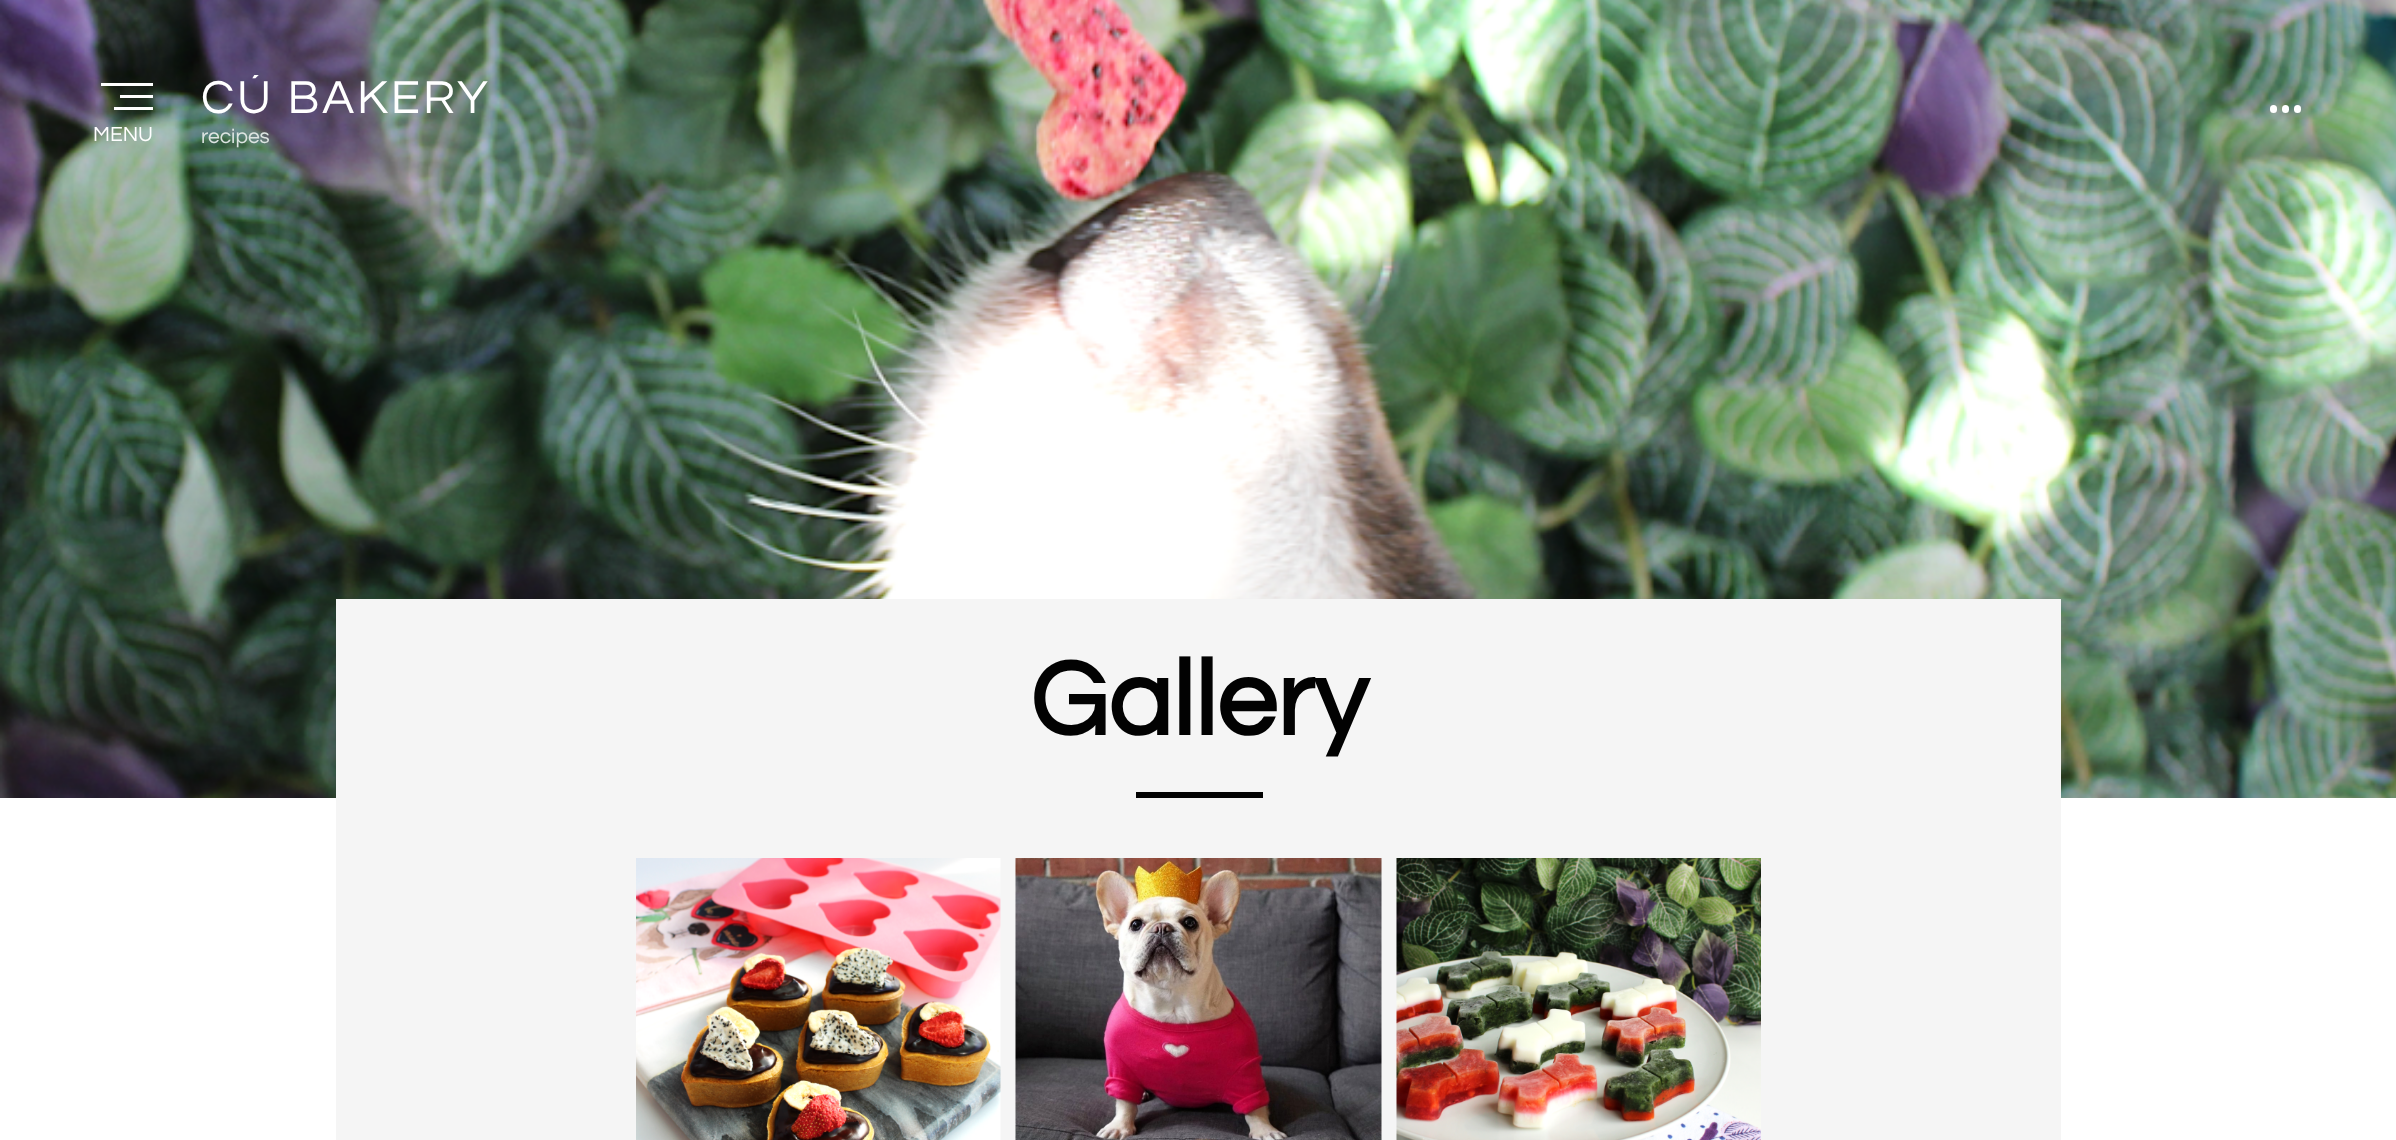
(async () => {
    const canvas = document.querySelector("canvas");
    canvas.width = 2396;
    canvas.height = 1140;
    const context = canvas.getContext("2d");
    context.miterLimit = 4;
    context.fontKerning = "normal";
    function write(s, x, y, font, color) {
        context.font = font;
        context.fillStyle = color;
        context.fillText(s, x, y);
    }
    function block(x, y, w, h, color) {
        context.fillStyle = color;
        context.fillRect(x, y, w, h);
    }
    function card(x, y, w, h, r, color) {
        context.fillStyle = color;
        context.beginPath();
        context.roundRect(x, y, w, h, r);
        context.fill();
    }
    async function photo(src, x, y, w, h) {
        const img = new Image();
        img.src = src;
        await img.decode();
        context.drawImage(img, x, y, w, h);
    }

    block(0, 0, 2396, 1140, "rgb(255, 255, 255)");
    await photo("media/1.png", 0, 0, 2396, 798);
    context.save();
    context.beginPath();
    context.rect(201, 75, 2055, 72);
    context.clip();
    context.letterSpacing = "3px";
    write("CÚ BAKERY", 201, 113, "48px Questrial", "rgb(255, 255, 255)");
    context.restore();
    write("recipes", 201, 143, "21px Questrial", "rgb(221, 228, 225)");
    card(2294, 105, 7, 8, 3.5, "rgb(255, 255, 255)");
    card(2270, 105, 7, 8, 3.5, "rgb(255, 255, 255)");
    card(2282, 105, 7, 8, 3.5, "rgb(255, 255, 255)");
    block(101, 83, 52, 3, "rgb(255, 255, 255)");
    block(120, 95, 33, 3, "rgb(255, 255, 255)");
    block(114, 107, 39, 3, "rgb(255, 255, 255)");
    write("MENU", 93, 141, "21px Questrial", "rgb(255, 255, 255)");
    block(336, 599, 1725, 541, "rgb(245, 245, 245)");
    write("Gallery", 1030, 735, "bold 108px Questrial", "rgb(2, 2, 2)");
    block(1136, 792, 127, 6, "rgb(2, 2, 2)");
    await photo("media/2.png", 636, 858, 365, 282);
    await photo("media/3.png", 1015, 858, 367, 282);
    await photo("media/4.png", 1396, 858, 365, 282);
})();
